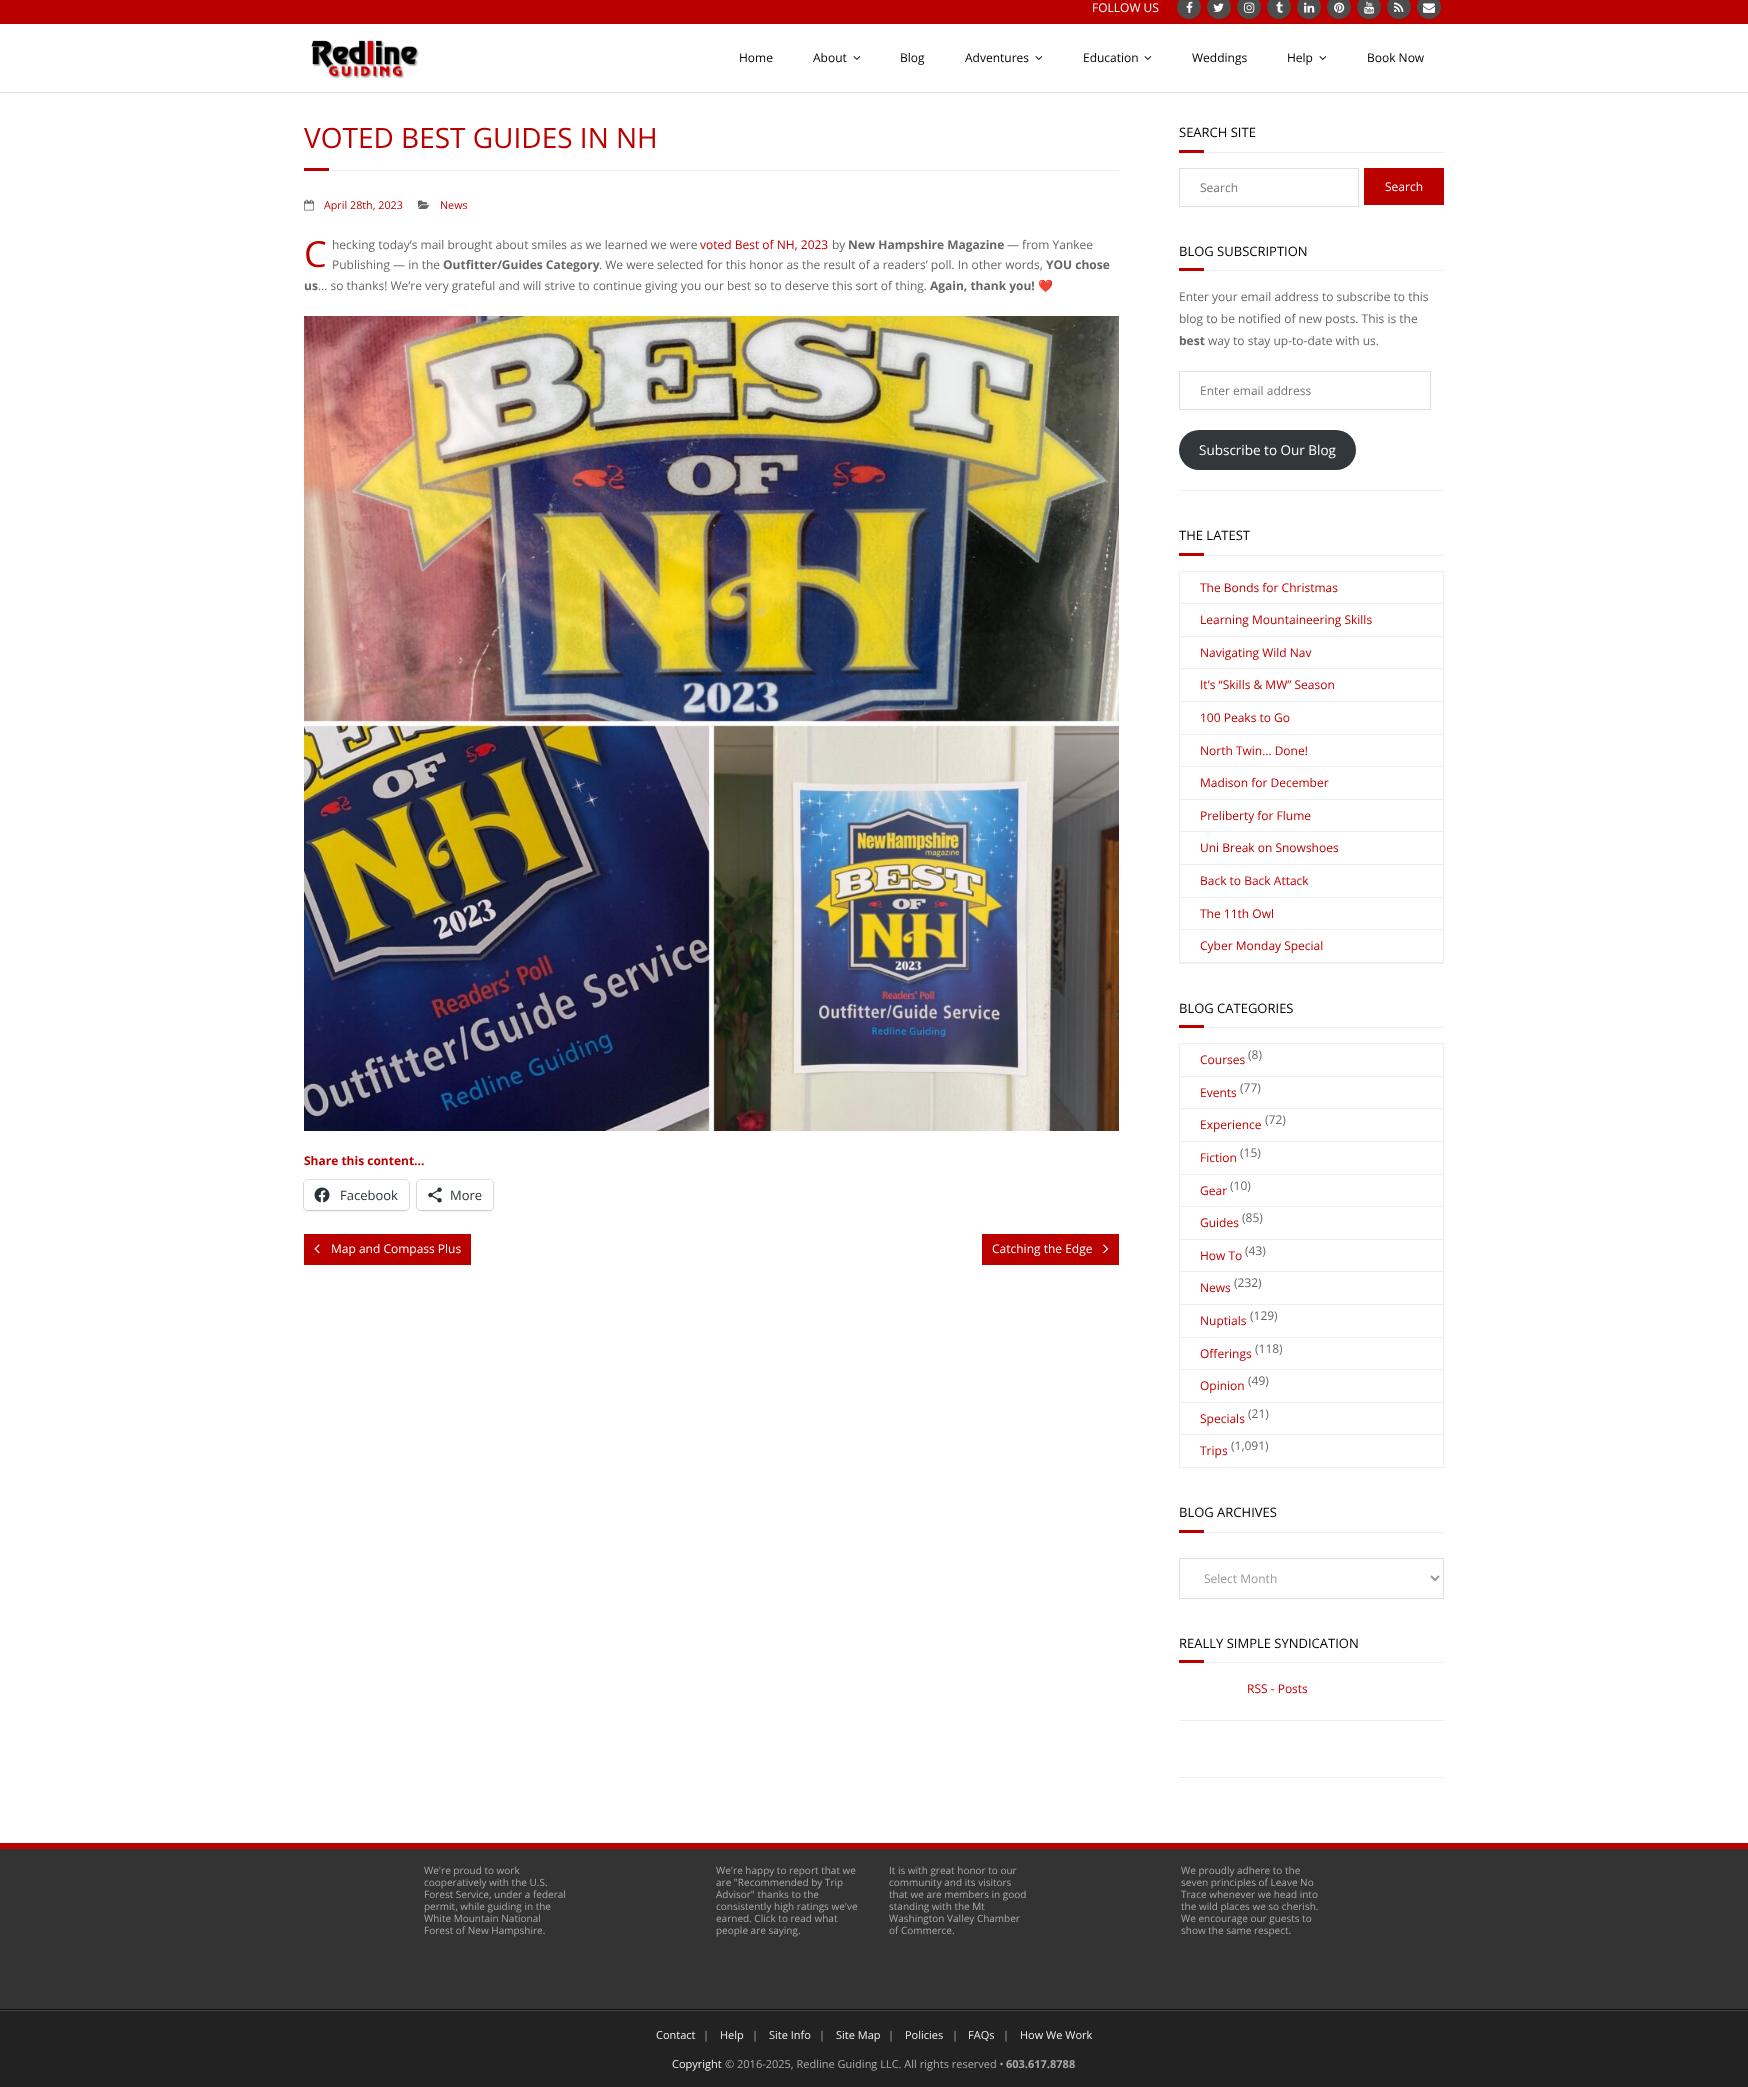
(async () => {
    const canvas = document.querySelector("canvas");
    canvas.width = 1748;
    canvas.height = 2087;
    const context = canvas.getContext("2d");
    context.miterLimit = 4;
    context.fontKerning = "normal";
    function write(s, x, y, font, color) {
        context.font = font;
        context.fillStyle = color;
        context.fillText(s, x, y);
    }
    function block(x, y, w, h, color) {
        context.fillStyle = color;
        context.fillRect(x, y, w, h);
    }
    function card(x, y, w, h, r, color) {
        context.fillStyle = color;
        context.beginPath();
        context.roundRect(x, y, w, h, r);
        context.fill();
    }
    async function photo(src, x, y, w, h) {
        const img = new Image();
        img.src = src;
        await img.decode();
        context.drawImage(img, x, y, w, h);
    }

    block(0, 0, 1748, 2087, "rgb(255, 255, 255)");
    block(0, 0, 1748, 24, "rgb(187, 0, 0)");
    write("FOLLOW US", 1092, 12, "12px Open Sans", "rgb(255, 255, 255)");
    context.fillStyle = "rgb(77, 77, 77)";
    context.beginPath();
    context.arc(1189, 7, 12, 0, Math.PI * 2);
    context.fill();
    await photo("media/1.png", 1186, 1, 7, 12);
    context.beginPath();
    context.arc(1219, 7, 12, 0, Math.PI * 2);
    context.fill();
    await photo("media/2.png", 1213, 3, 11, 9);
    context.beginPath();
    context.arc(1249, 7, 12, 0, Math.PI * 2);
    context.fill();
    await photo("media/3.png", 1244, 2, 11, 11);
    context.beginPath();
    context.arc(1279, 7, 12, 0, Math.PI * 2);
    context.fill();
    await photo("media/4.png", 1276, 1, 7, 12);
    context.beginPath();
    context.arc(1309, 7, 12, 0, Math.PI * 2);
    context.fill();
    await photo("media/5.png", 1304, 2, 11, 11);
    context.beginPath();
    context.arc(1339, 7, 12, 0, Math.PI * 2);
    context.fill();
    await photo("media/6.png", 1334, 2, 11, 11);
    context.beginPath();
    context.arc(1369, 7, 12, 0, Math.PI * 2);
    context.fill();
    await photo("media/7.png", 1364, 1, 11, 13);
    context.beginPath();
    context.arc(1399, 7, 12, 0, Math.PI * 2);
    context.fill();
    await photo("media/8.png", 1394, 2, 10, 10);
    context.beginPath();
    context.arc(1429, 7, 12, 0, Math.PI * 2);
    context.fill();
    await photo("media/9.png", 1423, 3, 12, 10);
    block(0, 92, 1748, 1, "rgb(224, 224, 224)");
    await photo("media/10.png", 311, 40, 108, 39);
    write("Home", 739, 62, "12px Open Sans", "rgb(0, 0, 0)");
    write("About", 813, 62, "12px Open Sans", "rgb(0, 0, 0)");
    await photo("media/11.png", 853, 56, 8, 4);
    write("Blog", 900, 62, "12px Open Sans", "rgb(0, 0, 0)");
    write("Adventures", 965, 62, "12px Open Sans", "rgb(0, 0, 0)");
    await photo("media/11.png", 1035, 56, 8, 4);
    write("Education", 1083, 62, "12px Open Sans", "rgb(0, 0, 0)");
    await photo("media/11.png", 1144, 56, 8, 4);
    write("Weddings", 1192, 62, "12px Open Sans", "rgb(0, 0, 0)");
    write("Help", 1287, 62, "12px Open Sans", "rgb(0, 0, 0)");
    await photo("media/11.png", 1319, 56, 8, 4);
    write("Book Now", 1367, 62, "12px Open Sans", "rgb(0, 0, 0)");
    write("VOTED BEST GUIDES IN NH", 304, 148, "28px Open Sans", "rgb(187, 0, 0)");
    block(304, 168, 25, 3, "rgb(187, 0, 0)");
    block(329, 170, 790, 1, "rgb(238, 238, 238)");
    await photo("media/12.png", 304, 199, 11, 12);
    write("April 28th, 2023", 324, 209, "10.75px Open Sans", "rgb(187, 0, 0)");
    await photo("media/13.png", 418, 200, 12, 9);
    write("News", 440, 209, "10.75px Open Sans", "rgb(187, 0, 0)");
    write("C", 304, 267, "36px Open Sans", "rgb(187, 0, 0)");
    write("hecking today’s mail brought about smiles as we learned we were", 332, 249, "12px Open Sans", "rgb(102, 102, 102)");
    write("voted Best of NH, 2023", 700, 249, "12px Open Sans", "rgb(187, 0, 0)");
    write("by", 832, 249, "12px Open Sans", "rgb(102, 102, 102)");
    write("New Hampshire Magazine", 848, 249, "bold 12px Open Sans", "rgb(102, 102, 102)");
    write("— from Yankee", 1007, 249, "12px Open Sans", "rgb(102, 102, 102)");
    write("Publishing — in the", 332, 269, "12px Open Sans", "rgb(102, 102, 102)");
    write("Outfitter/Guides Category", 443, 269, "bold 12px Open Sans", "rgb(102, 102, 102)");
    write(". We were selected for this honor as the result of a readers’ poll. In other words,", 599, 269, "12px Open Sans", "rgb(102, 102, 102)");
    write("YOU chose", 1046, 269, "bold 12px Open Sans", "rgb(102, 102, 102)");
    write("us", 304, 290, "bold 12px Open Sans", "rgb(102, 102, 102)");
    write("… so thanks! We’re very grateful and will strive to continue giving you our best so to deserve this sort of thing.", 318, 290, "12px Open Sans", "rgb(102, 102, 102)");
    write("Again, thank you!", 930, 290, "bold 12px Open Sans", "rgb(102, 102, 102)");
    write("❤️", 1038, 290, "12px Noto Color Emoji", "rgb(102, 102, 102)");
    await photo("media/14.png", 304, 316, 815, 815);
    write("Share this content...", 304, 1165, "bold 12px Open Sans", "rgb(187, 0, 0)");
    context.beginPath();
    context.roundRect(303.5, 1179.5, 106, 31, 4.5);
    context.strokeStyle = "rgb(224, 224, 224)";
    context.stroke();
    context.fillStyle = "rgba(0, 0, 0, 0.12)";
    context.filter = "blur(1px)";
    context.beginPath();
    context.roundRect(304, 1181, 105, 30, 4);
    context.fill();
    context.filter = "none";
    card(304, 1180, 105, 30, 4, "rgb(255, 255, 255)");
    await photo("media/15.png", 314, 1187, 16, 16);
    write("Facebook", 340, 1200, "13px Open Sans", "rgb(44, 51, 56)");
    context.beginPath();
    context.roundRect(416.5, 1179.5, 77, 31, 4.5);
    context.stroke();
    context.fillStyle = "rgba(0, 0, 0, 0.12)";
    context.filter = "blur(1px)";
    context.beginPath();
    context.roundRect(417, 1181, 76, 30, 4);
    context.fill();
    context.filter = "none";
    card(417, 1180, 76, 30, 4, "rgb(255, 255, 255)");
    await photo("media/16.png", 428, 1187, 14, 16);
    write("More", 450, 1200, "13px Open Sans", "rgb(44, 51, 56)");
    block(304, 1234, 167, 31, "rgb(187, 0, 0)");
    await photo("media/17.png", 314, 1244, 6, 10);
    write("Map and Compass Plus", 331, 1253, "12px Open Sans", "rgb(255, 255, 255)");
    block(982, 1234, 137, 31, "rgb(187, 0, 0)");
    write("Catching the Edge", 992, 1253, "12px Open Sans", "rgb(255, 255, 255)");
    await photo("media/18.png", 1103, 1244, 6, 10);
    write("SEARCH SITE", 1179, 137, "13px Open Sans", "rgb(0, 0, 0)");
    block(1179, 150, 25, 3, "rgb(187, 0, 0)");
    block(1204, 152, 240, 1, "rgb(238, 238, 238)");
    context.strokeRect(1179.5, 168.5, 179, 38);
    write("Search", 1200, 192, "12px Open Sans", "rgb(117, 117, 117)");
    block(1364, 168, 80, 37, "rgb(187, 0, 0)");
    write("Search", 1385, 191, "12px Open Sans", "rgb(255, 255, 255)");
    block(1179, 490, 265, 1, "rgb(238, 238, 238)");
    write("BLOG SUBSCRIPTION", 1179, 256, "13px Open Sans", "rgb(0, 0, 0)");
    block(1179, 268, 25, 3, "rgb(187, 0, 0)");
    block(1204, 270, 240, 1, "rgb(238, 238, 238)");
    write("Enter your email address to subscribe to this", 1179, 301, "12px Open Sans", "rgb(102, 102, 102)");
    write("blog to be notified of new posts. This is the", 1179, 323, "12px Open Sans", "rgb(102, 102, 102)");
    write("best", 1179, 345, "bold 12px Open Sans", "rgb(102, 102, 102)");
    write("way to stay up-to-date with us.", 1208, 345, "12px Open Sans", "rgb(102, 102, 102)");
    context.strokeRect(1179.5, 371.5, 251, 38);
    write("Enter email address", 1200, 395, "12px Open Sans", "rgb(117, 117, 117)");
    card(1179, 430, 177, 40, 20, "rgb(50, 55, 60)");
    write("Subscribe to Our Blog", 1199, 455, "13.5px Open Sans", "rgb(255, 255, 255)");
    block(1179, 963, 265, 1, "rgb(238, 238, 238)");
    write("THE LATEST", 1179, 540, "13px Open Sans", "rgb(0, 0, 0)");
    block(1179, 553, 25, 3, "rgb(187, 0, 0)");
    block(1204, 555, 240, 1, "rgb(238, 238, 238)");
    block(1179, 571, 265, 1, "rgb(238, 238, 238)");
    block(1443, 571, 1, 392, "rgb(238, 238, 238)");
    block(1179, 571, 1, 392, "rgb(238, 238, 238)");
    block(1180, 603, 263, 1, "rgb(238, 238, 238)");
    write("The Bonds for Christmas", 1200, 592, "12px Open Sans", "rgb(187, 0, 0)");
    block(1180, 636, 263, 1, "rgb(238, 238, 238)");
    write("Learning Mountaineering Skills", 1200, 624, "12px Open Sans", "rgb(187, 0, 0)");
    block(1180, 668, 263, 1, "rgb(238, 238, 238)");
    write("Navigating Wild Nav", 1200, 657, "12px Open Sans", "rgb(187, 0, 0)");
    block(1180, 701, 263, 1, "rgb(238, 238, 238)");
    write("It’s “Skills & MW” Season", 1200, 689, "12px Open Sans", "rgb(187, 0, 0)");
    block(1180, 734, 263, 1, "rgb(238, 238, 238)");
    write("100 Peaks to Go", 1200, 722, "12px Open Sans", "rgb(187, 0, 0)");
    block(1180, 766, 263, 1, "rgb(238, 238, 238)");
    write("North Twin… Done!", 1200, 755, "12px Open Sans", "rgb(187, 0, 0)");
    block(1180, 799, 263, 1, "rgb(238, 238, 238)");
    write("Madison for December", 1200, 787, "12px Open Sans", "rgb(187, 0, 0)");
    block(1180, 831, 263, 1, "rgb(238, 238, 238)");
    write("Preliberty for Flume", 1200, 820, "12px Open Sans", "rgb(187, 0, 0)");
    block(1180, 864, 263, 1, "rgb(238, 238, 238)");
    write("Uni Break on Snowshoes", 1200, 852, "12px Open Sans", "rgb(187, 0, 0)");
    block(1180, 897, 263, 1, "rgb(238, 238, 238)");
    write("Back to Back Attack", 1200, 885, "12px Open Sans", "rgb(187, 0, 0)");
    block(1180, 929, 263, 1, "rgb(238, 238, 238)");
    write("The 11th Owl", 1200, 918, "12px Open Sans", "rgb(187, 0, 0)");
    block(1180, 962, 263, 1, "rgb(238, 238, 238)");
    write("Cyber Monday Special", 1200, 950, "12px Open Sans", "rgb(187, 0, 0)");
    write("BLOG CATEGORIES", 1179, 1013, "13px Open Sans", "rgb(0, 0, 0)");
    block(1179, 1025, 25, 3, "rgb(187, 0, 0)");
    block(1204, 1027, 240, 1, "rgb(238, 238, 238)");
    block(1179, 1043, 265, 1, "rgb(238, 238, 238)");
    block(1443, 1043, 1, 425, "rgb(238, 238, 238)");
    block(1179, 1043, 1, 425, "rgb(238, 238, 238)");
    block(1180, 1076, 263, 1, "rgb(238, 238, 238)");
    write("Courses", 1200, 1064, "12px Open Sans", "rgb(187, 0, 0)");
    write("(8)", 1248, 1059, "12px Open Sans", "rgb(102, 102, 102)");
    block(1180, 1108, 263, 1, "rgb(238, 238, 238)");
    write("Events", 1200, 1097, "12px Open Sans", "rgb(187, 0, 0)");
    write("(77)", 1240, 1092, "12px Open Sans", "rgb(102, 102, 102)");
    block(1180, 1141, 263, 1, "rgb(238, 238, 238)");
    write("Experience", 1200, 1129, "12px Open Sans", "rgb(187, 0, 0)");
    write("(72)", 1265, 1124, "12px Open Sans", "rgb(102, 102, 102)");
    block(1180, 1174, 263, 1, "rgb(238, 238, 238)");
    write("Fiction", 1200, 1162, "12px Open Sans", "rgb(187, 0, 0)");
    write("(15)", 1240, 1157, "12px Open Sans", "rgb(102, 102, 102)");
    block(1180, 1206, 263, 1, "rgb(238, 238, 238)");
    write("Gear", 1200, 1195, "12px Open Sans", "rgb(187, 0, 0)");
    write("(10)", 1230, 1190, "12px Open Sans", "rgb(102, 102, 102)");
    block(1180, 1239, 263, 1, "rgb(238, 238, 238)");
    write("Guides", 1200, 1227, "12px Open Sans", "rgb(187, 0, 0)");
    write("(85)", 1242, 1222, "12px Open Sans", "rgb(102, 102, 102)");
    block(1180, 1271, 263, 1, "rgb(238, 238, 238)");
    write("How To", 1200, 1260, "12px Open Sans", "rgb(187, 0, 0)");
    write("(43)", 1245, 1255, "12px Open Sans", "rgb(102, 102, 102)");
    block(1180, 1304, 263, 1, "rgb(238, 238, 238)");
    write("News", 1200, 1292, "12px Open Sans", "rgb(187, 0, 0)");
    write("(232)", 1234, 1287, "12px Open Sans", "rgb(102, 102, 102)");
    block(1180, 1337, 263, 1, "rgb(238, 238, 238)");
    write("Nuptials", 1200, 1325, "12px Open Sans", "rgb(187, 0, 0)");
    write("(129)", 1250, 1320, "12px Open Sans", "rgb(102, 102, 102)");
    block(1180, 1369, 263, 1, "rgb(238, 238, 238)");
    write("Offerings", 1200, 1358, "12px Open Sans", "rgb(187, 0, 0)");
    write("(118)", 1255, 1353, "12px Open Sans", "rgb(102, 102, 102)");
    block(1180, 1402, 263, 1, "rgb(238, 238, 238)");
    write("Opinion", 1200, 1390, "12px Open Sans", "rgb(187, 0, 0)");
    write("(49)", 1248, 1385, "12px Open Sans", "rgb(102, 102, 102)");
    block(1180, 1434, 263, 1, "rgb(238, 238, 238)");
    write("Specials", 1200, 1423, "12px Open Sans", "rgb(187, 0, 0)");
    write("(21)", 1248, 1418, "12px Open Sans", "rgb(102, 102, 102)");
    block(1180, 1467, 263, 1, "rgb(238, 238, 238)");
    write("Trips", 1200, 1455, "12px Open Sans", "rgb(187, 0, 0)");
    write("(1,091)", 1231, 1450, "12px Open Sans", "rgb(102, 102, 102)");
    write("BLOG ARCHIVES", 1179, 1517, "13px Open Sans", "rgb(0, 0, 0)");
    block(1179, 1530, 25, 3, "rgb(187, 0, 0)");
    block(1204, 1532, 240, 1, "rgb(238, 238, 238)");
    context.strokeRect(1179.5, 1558.5, 264, 40);
    context.beginPath();
    context.moveTo(1431, 1576);
    context.lineTo(1435, 1580);
    context.lineTo(1439, 1576);
    context.strokeStyle = "rgb(153, 153, 153)";
    context.lineWidth = 2;
    context.stroke();
    write("Select Month", 1204, 1583, "12px Open Sans", "rgb(153, 153, 153)");
    block(1179, 1720, 265, 1, "rgb(238, 238, 238)");
    write("REALLY SIMPLE SYNDICATION", 1179, 1648, "13px Open Sans", "rgb(0, 0, 0)");
    block(1179, 1660, 25, 3, "rgb(187, 0, 0)");
    block(1204, 1662, 240, 1, "rgb(238, 238, 238)");
    write("RSS - Posts", 1247, 1693, "12px Open Sans", "rgb(187, 0, 0)");
    block(1179, 1777, 265, 1, "rgb(238, 238, 238)");
    block(0, 1849, 1748, 160, "rgb(51, 51, 51)");
    block(0, 1843, 1748, 6, "rgb(187, 0, 0)");
    block(0, 2009, 1748, 1, "rgb(17, 17, 17)");
    write("We're proud to work", 424, 1874, "10px Open Sans", "rgb(170, 170, 170)");
    write("cooperatively with the U.S.", 424, 1886, "10px Open Sans", "rgb(170, 170, 170)");
    write("Forest Service, under a federal", 424, 1898, "10px Open Sans", "rgb(170, 170, 170)");
    write("permit, while guiding in the", 424, 1910, "10px Open Sans", "rgb(170, 170, 170)");
    write("White Mountain National", 424, 1922, "10px Open Sans", "rgb(170, 170, 170)");
    write("Forest of New Hampshire.", 424, 1934, "10px Open Sans", "rgb(170, 170, 170)");
    write("We're happy to report that we", 716, 1874, "10px Open Sans", "rgb(170, 170, 170)");
    write("are \"Recommended by Trip", 716, 1886, "10px Open Sans", "rgb(170, 170, 170)");
    write("Advisor\" thanks to the", 716, 1898, "10px Open Sans", "rgb(170, 170, 170)");
    write("consistently high ratings we've", 716, 1910, "10px Open Sans", "rgb(170, 170, 170)");
    write("earned. Click to read what", 716, 1922, "10px Open Sans", "rgb(170, 170, 170)");
    write("people are saying.", 716, 1934, "10px Open Sans", "rgb(170, 170, 170)");
    write("It is with great honor to our", 889, 1874, "10px Open Sans", "rgb(170, 170, 170)");
    write("community and its visitors", 889, 1886, "10px Open Sans", "rgb(170, 170, 170)");
    write("that we are members in good", 889, 1898, "10px Open Sans", "rgb(170, 170, 170)");
    write("standing with the Mt", 889, 1910, "10px Open Sans", "rgb(170, 170, 170)");
    write("Washington Valley Chamber", 889, 1922, "10px Open Sans", "rgb(170, 170, 170)");
    write("of Commerce.", 889, 1934, "10px Open Sans", "rgb(170, 170, 170)");
    write("We proudly adhere to the", 1181, 1874, "10px Open Sans", "rgb(170, 170, 170)");
    write("seven principles of Leave No", 1181, 1886, "10px Open Sans", "rgb(170, 170, 170)");
    write("Trace whenever we head into", 1181, 1898, "10px Open Sans", "rgb(170, 170, 170)");
    write("the wild places we so cherish.", 1181, 1910, "10px Open Sans", "rgb(170, 170, 170)");
    write("We encourage our guests to", 1181, 1922, "10px Open Sans", "rgb(170, 170, 170)");
    write("show the same respect.", 1181, 1934, "10px Open Sans", "rgb(170, 170, 170)");
    block(0, 2011, 1748, 76, "rgb(34, 34, 34)");
    block(0, 2010, 1748, 1, "rgb(68, 68, 68)");
    write("Contact", 656, 2039, "11px Open Sans", "rgb(238, 238, 238)");
    write("|", 703, 2039, "11px Open Sans", "rgb(170, 170, 170)");
    write("Help", 720, 2039, "11px Open Sans", "rgb(238, 238, 238)");
    write("|", 752, 2039, "11px Open Sans", "rgb(170, 170, 170)");
    write("Site Info", 769, 2039, "11px Open Sans", "rgb(238, 238, 238)");
    write("|", 819, 2039, "11px Open Sans", "rgb(170, 170, 170)");
    write("Site Map", 836, 2039, "11px Open Sans", "rgb(238, 238, 238)");
    write("|", 888, 2039, "11px Open Sans", "rgb(170, 170, 170)");
    write("Policies", 905, 2039, "11px Open Sans", "rgb(238, 238, 238)");
    write("|", 952, 2039, "11px Open Sans", "rgb(170, 170, 170)");
    write("FAQs", 968, 2039, "11px Open Sans", "rgb(238, 238, 238)");
    write("|", 1003, 2039, "11px Open Sans", "rgb(170, 170, 170)");
    write("How We Work", 1020, 2039, "11px Open Sans", "rgb(238, 238, 238)");
    write("Copyright", 672, 2068, "11px Open Sans", "rgb(238, 238, 238)");
    write("© 2016-2025, Redline Guiding LLC. All rights reserved •", 725, 2068, "11px Open Sans", "rgb(170, 170, 170)");
    write("603.617.8788", 1006, 2068, "bold 11px Open Sans", "rgb(170, 170, 170)");
})();
